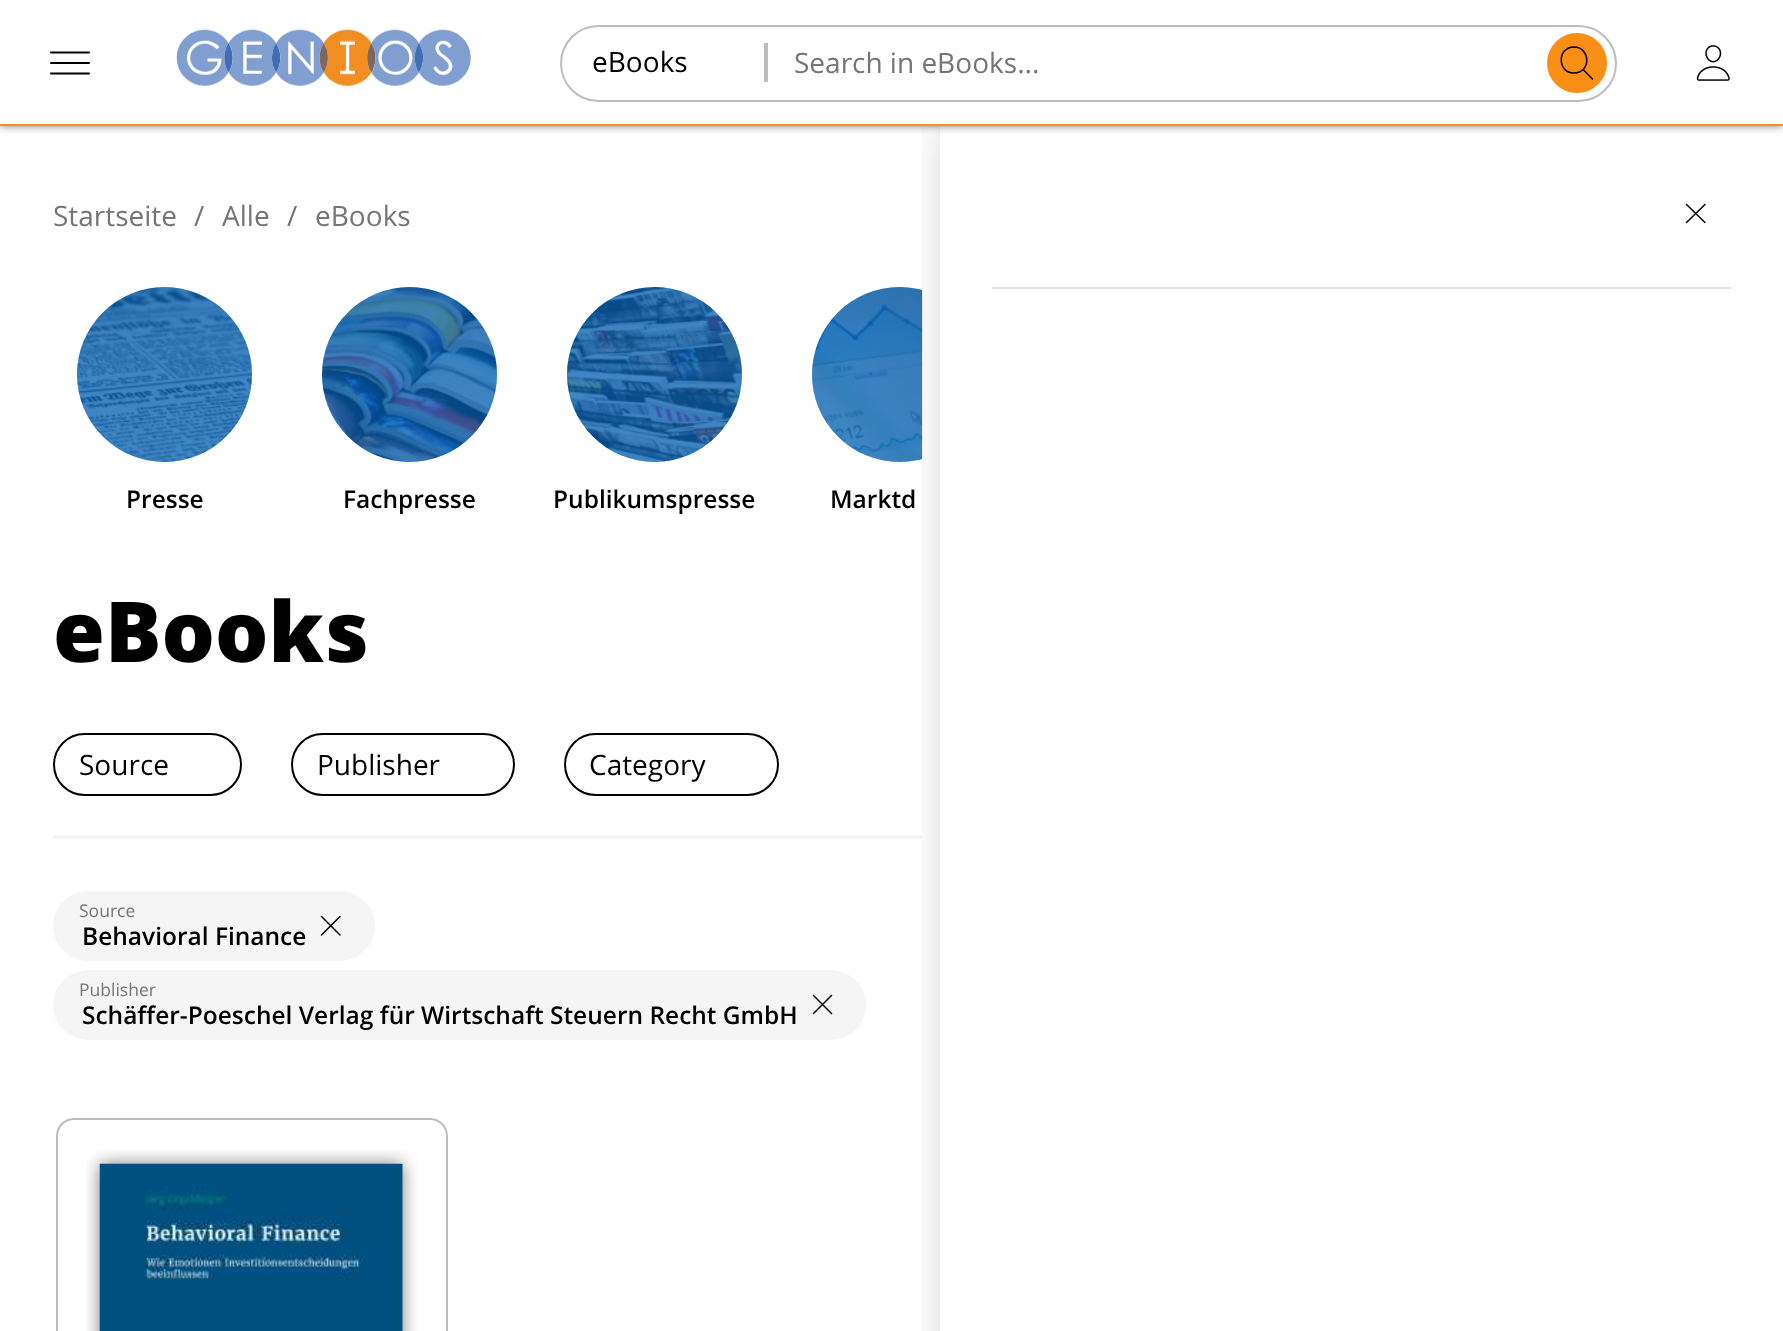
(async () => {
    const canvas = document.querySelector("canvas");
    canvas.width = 1783;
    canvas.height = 1331;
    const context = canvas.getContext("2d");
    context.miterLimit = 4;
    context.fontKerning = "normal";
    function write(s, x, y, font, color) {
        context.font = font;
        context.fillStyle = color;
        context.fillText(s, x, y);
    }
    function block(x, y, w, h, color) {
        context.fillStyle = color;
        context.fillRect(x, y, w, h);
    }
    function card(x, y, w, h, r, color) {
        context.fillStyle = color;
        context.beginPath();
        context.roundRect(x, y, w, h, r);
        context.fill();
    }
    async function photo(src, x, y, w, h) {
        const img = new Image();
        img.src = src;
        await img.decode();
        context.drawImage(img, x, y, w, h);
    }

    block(0, 0, 1783, 1331, "rgb(255, 255, 255)");
    context.fillStyle = "rgba(0, 0, 0, 0.5)";
    context.filter = "blur(4.5px)";
    context.beginPath();
    context.rect(0, 0, 1783, 126);
    context.fill();
    context.filter = "none";
    context.save();
    context.beginPath();
    context.rect(53, 287, 869, 285);
    context.clip();
    context.fillStyle = "rgb(0, 94, 177)";
    context.beginPath();
    context.arc(899.5, 374.5, 87.5, 0, Math.PI * 2);
    context.fill();
    context.restore();
    await photo("media/6.png", 812, 287, 111, 175);
    block(53, 835, 869, 4, "rgb(245, 245, 245)");
    context.save();
    context.beginPath();
    context.rect(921, 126, 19, 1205);
    context.clip();
    context.fillStyle = "rgba(0, 0, 0, 0.15)";
    context.filter = "blur(17.5px)";
    context.beginPath();
    context.rect(940, 126, 843, 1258);
    context.fill();
    context.filter = "none";
    context.restore();
    block(0, 0, 1783, 124, "rgb(255, 255, 255)");
    block(0, 124, 1783, 2, "rgb(249, 143, 23)");
    context.beginPath();
    context.moveTo(51, 52.5);
    context.lineTo(89, 52.5);
    context.moveTo(51, 63);
    context.lineTo(89, 63);
    context.moveTo(51, 73.5);
    context.lineTo(89, 73.5);
    context.strokeStyle = "rgb(0, 0, 0)";
    context.lineWidth = 2;
    context.lineCap = "round";
    context.stroke();
    await photo("media/1.png", 176, 29, 295, 57);
    context.beginPath();
    context.roundRect(561, 26, 1055, 75, 37.5);
    context.strokeStyle = "rgb(189, 189, 189)";
    context.stroke();
    write("eBooks", 592, 72, "28px Open Sans", "rgb(0, 0, 0)");
    block(764, 43, 4, 39, "rgb(189, 189, 189)");
    write("Search in eBooks...", 794, 73, "28px Open Sans", "rgb(117, 117, 117)");
    context.fillStyle = "rgb(249, 143, 23)";
    context.beginPath();
    context.arc(1577, 63, 29, 0, Math.PI * 2);
    context.fill();
    context.strokeStyle = "rgb(249, 143, 23)";
    context.stroke();
    context.beginPath();
    context.moveTo(1574, 47);
    context.bezierCurveTo(1557, 47, 1557, 73, 1574, 73);
    context.bezierCurveTo(1591, 73, 1591, 47.5, 1574, 47);
    context.closePath();
    context.strokeStyle = "rgb(0, 0, 0)";
    context.lineWidth = 1.5;
    context.lineCap = "butt";
    context.stroke();
    context.beginPath();
    context.moveTo(1583.5, 70);
    context.lineTo(1592.5, 79);
    context.lineCap = "round";
    context.stroke();
    await photo("media/2.png", 1696, 45, 34, 36);
    write("Startseite", 53, 226, "28px Open Sans", "rgb(117, 117, 117)");
    write("/", 194, 226, "28px Open Sans", "rgb(117, 117, 117)");
    write("Alle", 222, 226, "28px Open Sans", "rgb(117, 117, 117)");
    write("/", 287, 226, "28px Open Sans", "rgb(117, 117, 117)");
    write("eBooks", 315, 226, "28px Open Sans", "rgb(117, 117, 117)");
    context.fillStyle = "rgb(0, 94, 177)";
    context.beginPath();
    context.arc(164.5, 374.5, 87.5, 0, Math.PI * 2);
    context.fill();
    await photo("media/3.png", 77, 287, 175, 175);
    write("Presse", 126, 508, "600 24.5px Open Sans", "rgb(0, 0, 0)");
    context.fillStyle = "rgb(0, 94, 177)";
    context.beginPath();
    context.arc(409.5, 374.5, 87.5, 0, Math.PI * 2);
    context.fill();
    await photo("media/4.png", 322, 287, 175, 175);
    write("Fachpresse", 343, 508, "600 24.5px Open Sans", "rgb(0, 0, 0)");
    context.fillStyle = "rgb(0, 94, 177)";
    context.beginPath();
    context.arc(654.5, 374.5, 87.5, 0, Math.PI * 2);
    context.fill();
    await photo("media/5.png", 567, 287, 175, 175);
    write("Publikumspresse", 553, 508, "600 24.5px Open Sans", "rgb(0, 0, 0)");
    write("Marktd", 830, 508, "600 24.5px Open Sans", "rgb(0, 0, 0)");
    write("eBooks", 53, 662, "800 84px Open Sans", "rgb(0, 0, 0)");
    context.beginPath();
    context.roundRect(54, 734, 187, 61, 30.5);
    context.lineWidth = 2;
    context.stroke();
    write("Source", 79, 775, "28px Open Sans", "rgb(0, 0, 0)");
    context.beginPath();
    context.roundRect(292, 734, 222, 61, 30.5);
    context.stroke();
    write("Publisher", 317, 775, "28px Open Sans", "rgb(0, 0, 0)");
    context.beginPath();
    context.roundRect(565, 734, 213, 61, 30.5);
    context.stroke();
    write("Category", 589, 775, "28px Open Sans", "rgb(0, 0, 0)");
    card(53, 891, 322, 70, 35, "rgb(245, 245, 245)");
    write("Source", 79, 917, "17.5px Open Sans", "rgb(117, 117, 117)");
    write("Behavioral Finance", 82, 945, "600 24.5px Open Sans", "rgb(0, 0, 0)");
    context.beginPath();
    context.moveTo(340, 935);
    context.lineTo(321.5, 916.5);
    context.moveTo(340, 916.5);
    context.lineTo(321.5, 935);
    context.lineWidth = 1.5;
    context.lineJoin = "round";
    context.stroke();
    card(53, 970, 813, 70, 35, "rgb(245, 245, 245)");
    write("Publisher", 79, 996, "17.5px Open Sans", "rgb(117, 117, 117)");
    write("Schäffer-Poeschel Verlag für Wirtschaft Steuern Recht GmbH", 82, 1024, "600 24.5px Open Sans", "rgb(0, 0, 0)");
    context.beginPath();
    context.moveTo(831.5, 1013.5);
    context.lineTo(813.5, 995.5);
    context.moveTo(831.5, 995.5);
    context.lineTo(813.5, 1013.5);
    context.stroke();
    context.beginPath();
    context.roundRect(57, 1119, 390, 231, 17);
    context.strokeStyle = "rgb(189, 189, 189)";
    context.lineWidth = 2;
    context.lineJoin = "miter";
    context.stroke();
    await photo("media/7.png", 86, 1150, 331, 181);
    context.beginPath();
    context.moveTo(1705, 222.5);
    context.lineTo(1686.5, 204.5);
    context.moveTo(1705, 204.5);
    context.lineTo(1686.5, 222.5);
    context.strokeStyle = "rgb(0, 0, 0)";
    context.lineWidth = 1.5;
    context.lineJoin = "round";
    context.stroke();
    block(992, 287, 739, 2, "rgb(230, 230, 230)");
})();
